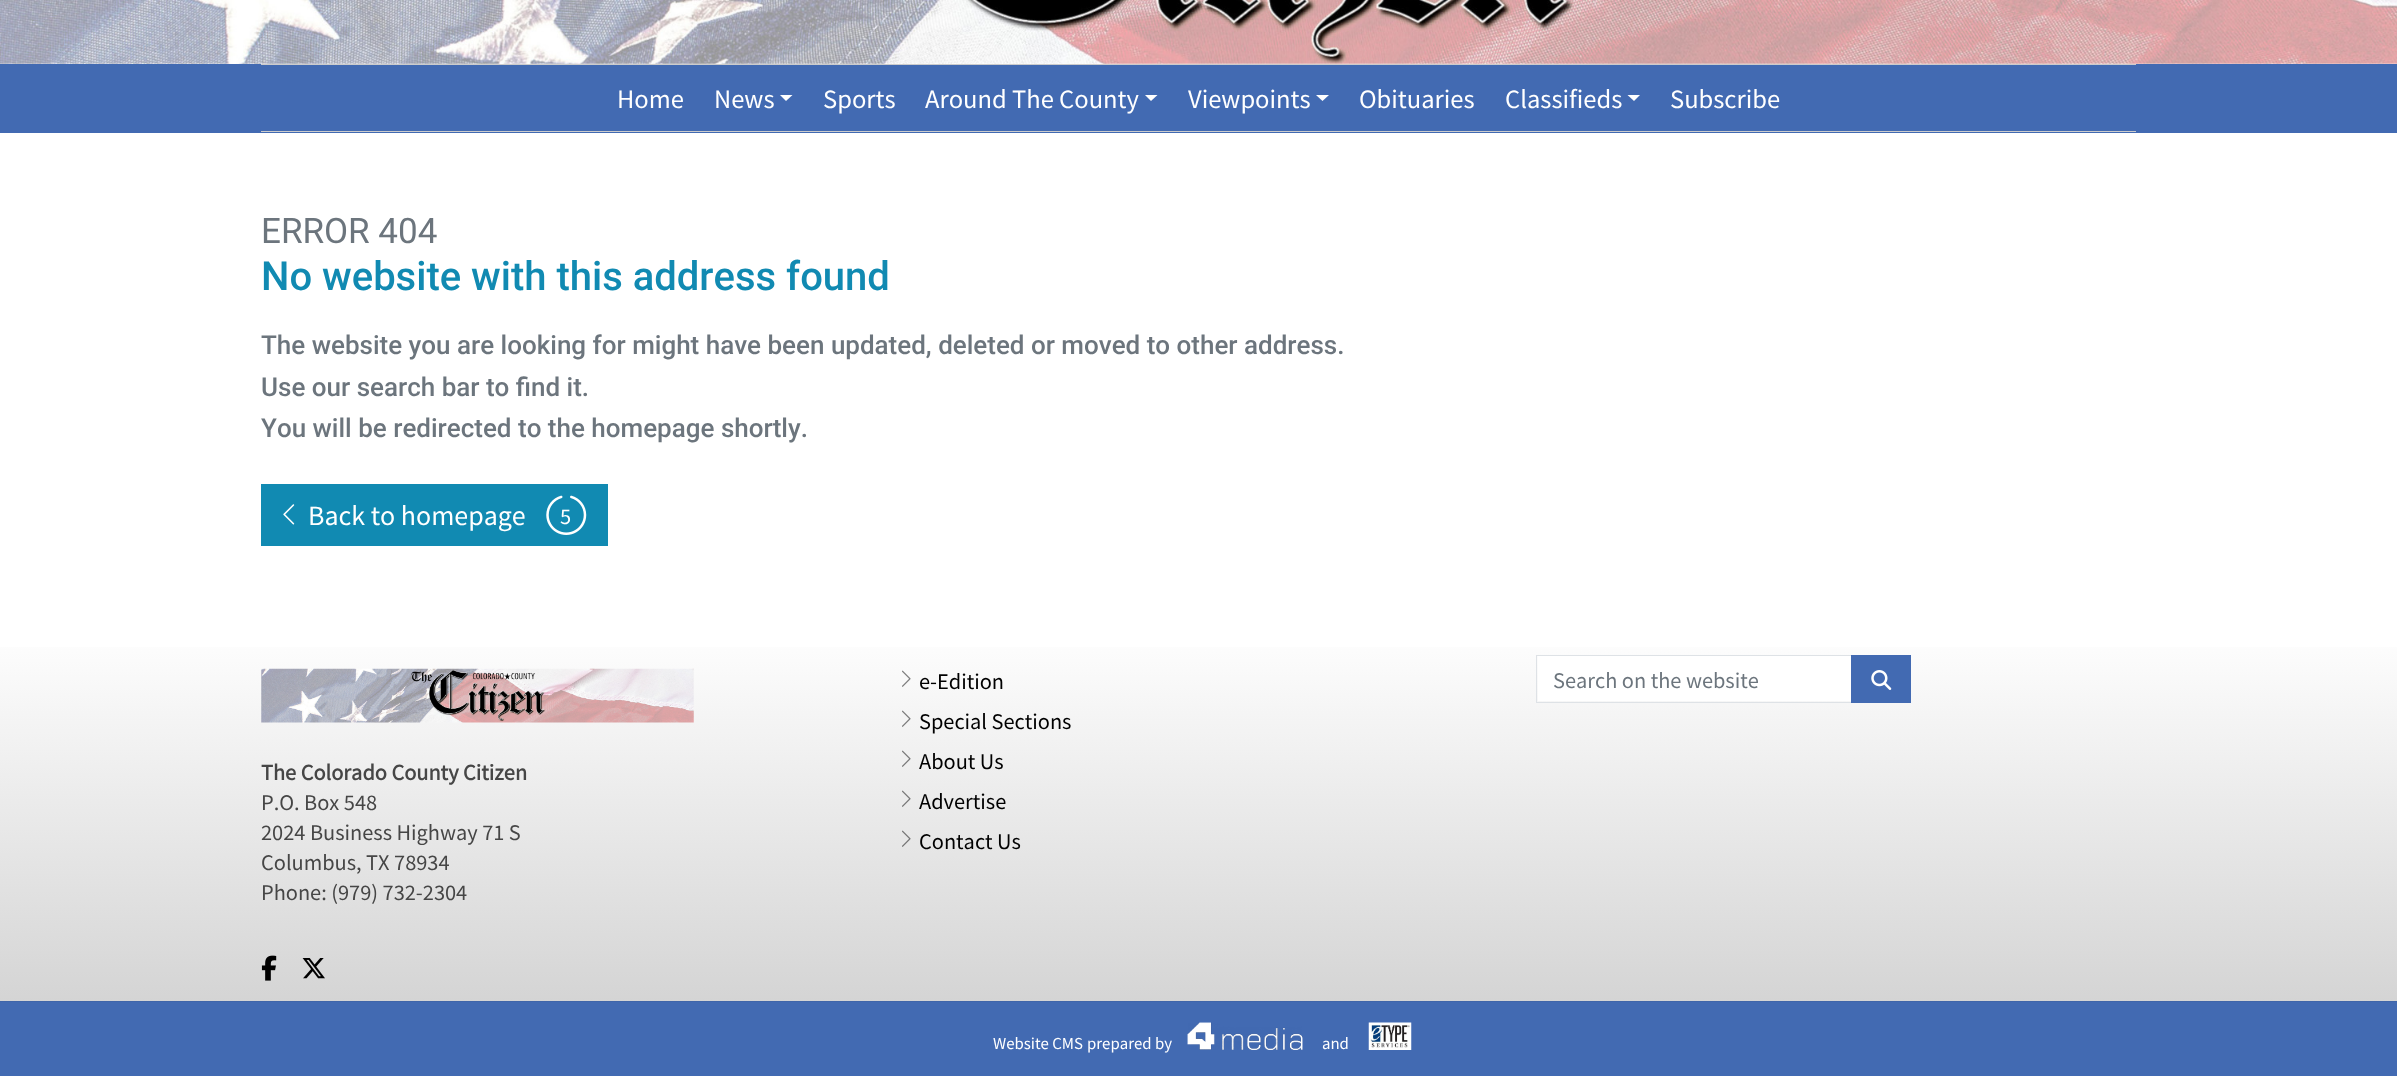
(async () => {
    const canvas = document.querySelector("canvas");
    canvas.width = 2397;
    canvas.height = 1076;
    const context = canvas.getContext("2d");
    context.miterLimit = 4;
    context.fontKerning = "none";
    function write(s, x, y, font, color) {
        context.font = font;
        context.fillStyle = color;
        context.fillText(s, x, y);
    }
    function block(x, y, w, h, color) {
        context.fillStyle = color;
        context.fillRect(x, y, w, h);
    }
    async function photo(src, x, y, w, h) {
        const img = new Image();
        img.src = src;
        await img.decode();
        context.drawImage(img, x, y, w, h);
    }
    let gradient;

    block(0, 0, 2397, 1076, "rgb(255, 255, 255)");
    await photo("media/1.png", 0, 0, 2397, 64);
    block(0, 64, 2397, 69, "rgb(66, 106, 178)");
    block(261, 64, 1875, 1, "rgb(204, 204, 204)");
    block(261, 131, 1875, 1, "rgb(204, 204, 204)");
    write("Home", 617, 108, "100 23.75px Noto Sans KR", "rgb(255, 255, 255)");
    write("News", 714, 108, "100 23.75px Noto Sans KR", "rgb(255, 255, 255)");
    context.beginPath();
    context.moveTo(780, 95);
    context.lineTo(792.5, 95);
    context.lineTo(786, 101);
    context.closePath();
    context.fill();
    write("Sports", 823, 108, "100 23.75px Noto Sans KR", "rgb(255, 255, 255)");
    write("Around The County", 925, 108, "100 23.75px Noto Sans KR", "rgb(255, 255, 255)");
    context.beginPath();
    context.moveTo(1145, 95);
    context.lineTo(1157.5, 95);
    context.lineTo(1151, 101);
    context.closePath();
    context.fill();
    write("Viewpoints", 1188, 108, "100 23.75px Noto Sans KR", "rgb(255, 255, 255)");
    context.beginPath();
    context.moveTo(1316, 95);
    context.lineTo(1329, 95);
    context.lineTo(1322.5, 101);
    context.closePath();
    context.fill();
    write("Obituaries", 1359, 108, "100 23.75px Noto Sans KR", "rgb(255, 255, 255)");
    write("Classifieds", 1505, 108, "100 23.75px Noto Sans KR", "rgb(255, 255, 255)");
    context.beginPath();
    context.moveTo(1627.5, 95);
    context.lineTo(1640, 95);
    context.lineTo(1634, 101);
    context.closePath();
    context.fill();
    write("Subscribe", 1670, 108, "100 23.75px Noto Sans KR", "rgb(255, 255, 255)");
    write("ERROR 404", 261, 243, "35px Roboto", "rgb(108, 117, 125)");
    write("No website with this address found", 261, 290, "500 40px Roboto", "rgb(17, 138, 178)");
    write("The website you are looking for might have been updated, deleted or moved to other address.", 261, 354, "500 26px Roboto", "rgb(108, 117, 125)");
    write("Use our search bar to find it.", 261, 396, "500 26px Roboto", "rgb(108, 117, 125)");
    write("You will be redirected to the homepage shortly.", 261, 437, "500 26px Roboto", "rgb(108, 117, 125)");
    block(261, 484, 347, 62, "rgb(17, 138, 178)");
    await photo("media/2.png", 283, 504, 12, 21);
    write("Back to homepage", 308, 525, "100 25px Noto Sans KR", "rgb(255, 255, 255)");
    write("5", 560, 524, "100 20px Noto Sans KR", "rgb(255, 255, 255)");
    await photo("media/3.png", 546, 495, 41, 40);
    gradient = context.createLinearGradient(1199, 625, 1199, 1076);
    gradient.addColorStop(0, "rgb(255, 255, 255)");
    gradient.addColorStop(1, "rgb(204, 204, 204)");
    context.fillStyle = gradient;
    context.fillRect(0, 647, 2397, 354);
    await photo("media/4.png", 261, 668, 433, 55);
    write("The Colorado County Citizen", 261, 780, "bold 20px Noto Sans KR", "rgb(70, 70, 70)");
    write("P.O. Box 548", 261, 810, "100 20px Noto Sans KR", "rgb(70, 70, 70)");
    write("2024 Business Highway 71 S", 261, 840, "100 20px Noto Sans KR", "rgb(70, 70, 70)");
    write("Columbus, TX 78934", 261, 870, "100 20px Noto Sans KR", "rgb(70, 70, 70)");
    write("Phone: (979) 732-2304", 261, 900, "100 20px Noto Sans KR", "rgb(70, 70, 70)");
    await photo("media/5.png", 902, 670, 9, 17);
    write("e-Edition", 919, 689, "100 20px Noto Sans KR", "rgb(0, 0, 0)");
    await photo("media/6.png", 902, 710, 9, 17);
    write("Special Sections", 919, 729, "100 20px Noto Sans KR", "rgb(0, 0, 0)");
    await photo("media/7.png", 902, 750, 9, 17);
    write("About Us", 919, 769, "100 20px Noto Sans KR", "rgb(0, 0, 0)");
    await photo("media/8.png", 902, 790, 9, 17);
    write("Advertise", 919, 809, "100 20px Noto Sans KR", "rgb(0, 0, 0)");
    await photo("media/9.png", 902, 830, 9, 17);
    write("Contact Us", 919, 849, "100 20px Noto Sans KR", "rgb(0, 0, 0)");
    block(1538, 656, 313, 45, "rgb(255, 255, 255)");
    context.strokeStyle = "rgb(222, 226, 230)";
    context.strokeRect(1536.5, 655.5, 316, 47);
    write("Search on the website", 1553, 688, "100 20px Noto Sans KR", "rgb(108, 117, 125)");
    block(1851, 655, 60, 48, "rgb(66, 106, 178)");
    await photo("media/10.png", 1871, 670, 21, 20);
    await photo("media/11.png", 261, 955, 16, 26);
    await photo("media/12.png", 302, 958, 23, 21);
    block(0, 1002, 2397, 74, "rgb(66, 106, 178)");
    block(0, 1001, 2397, 1, "rgb(63, 101, 169)");
    write("Website CMS", 993, 1049, "100 15px Noto Sans KR", "rgb(255, 255, 255)");
    write("prepared by", 1087, 1049, "100 15px Noto Sans KR", "rgb(255, 255, 255)");
    await photo("media/13.png", 1187, 1022, 116, 28);
    write("and", 1322, 1049, "100 15px Noto Sans KR", "rgb(255, 255, 255)");
    await photo("media/14.png", 1368, 1022, 44, 28);
})();
